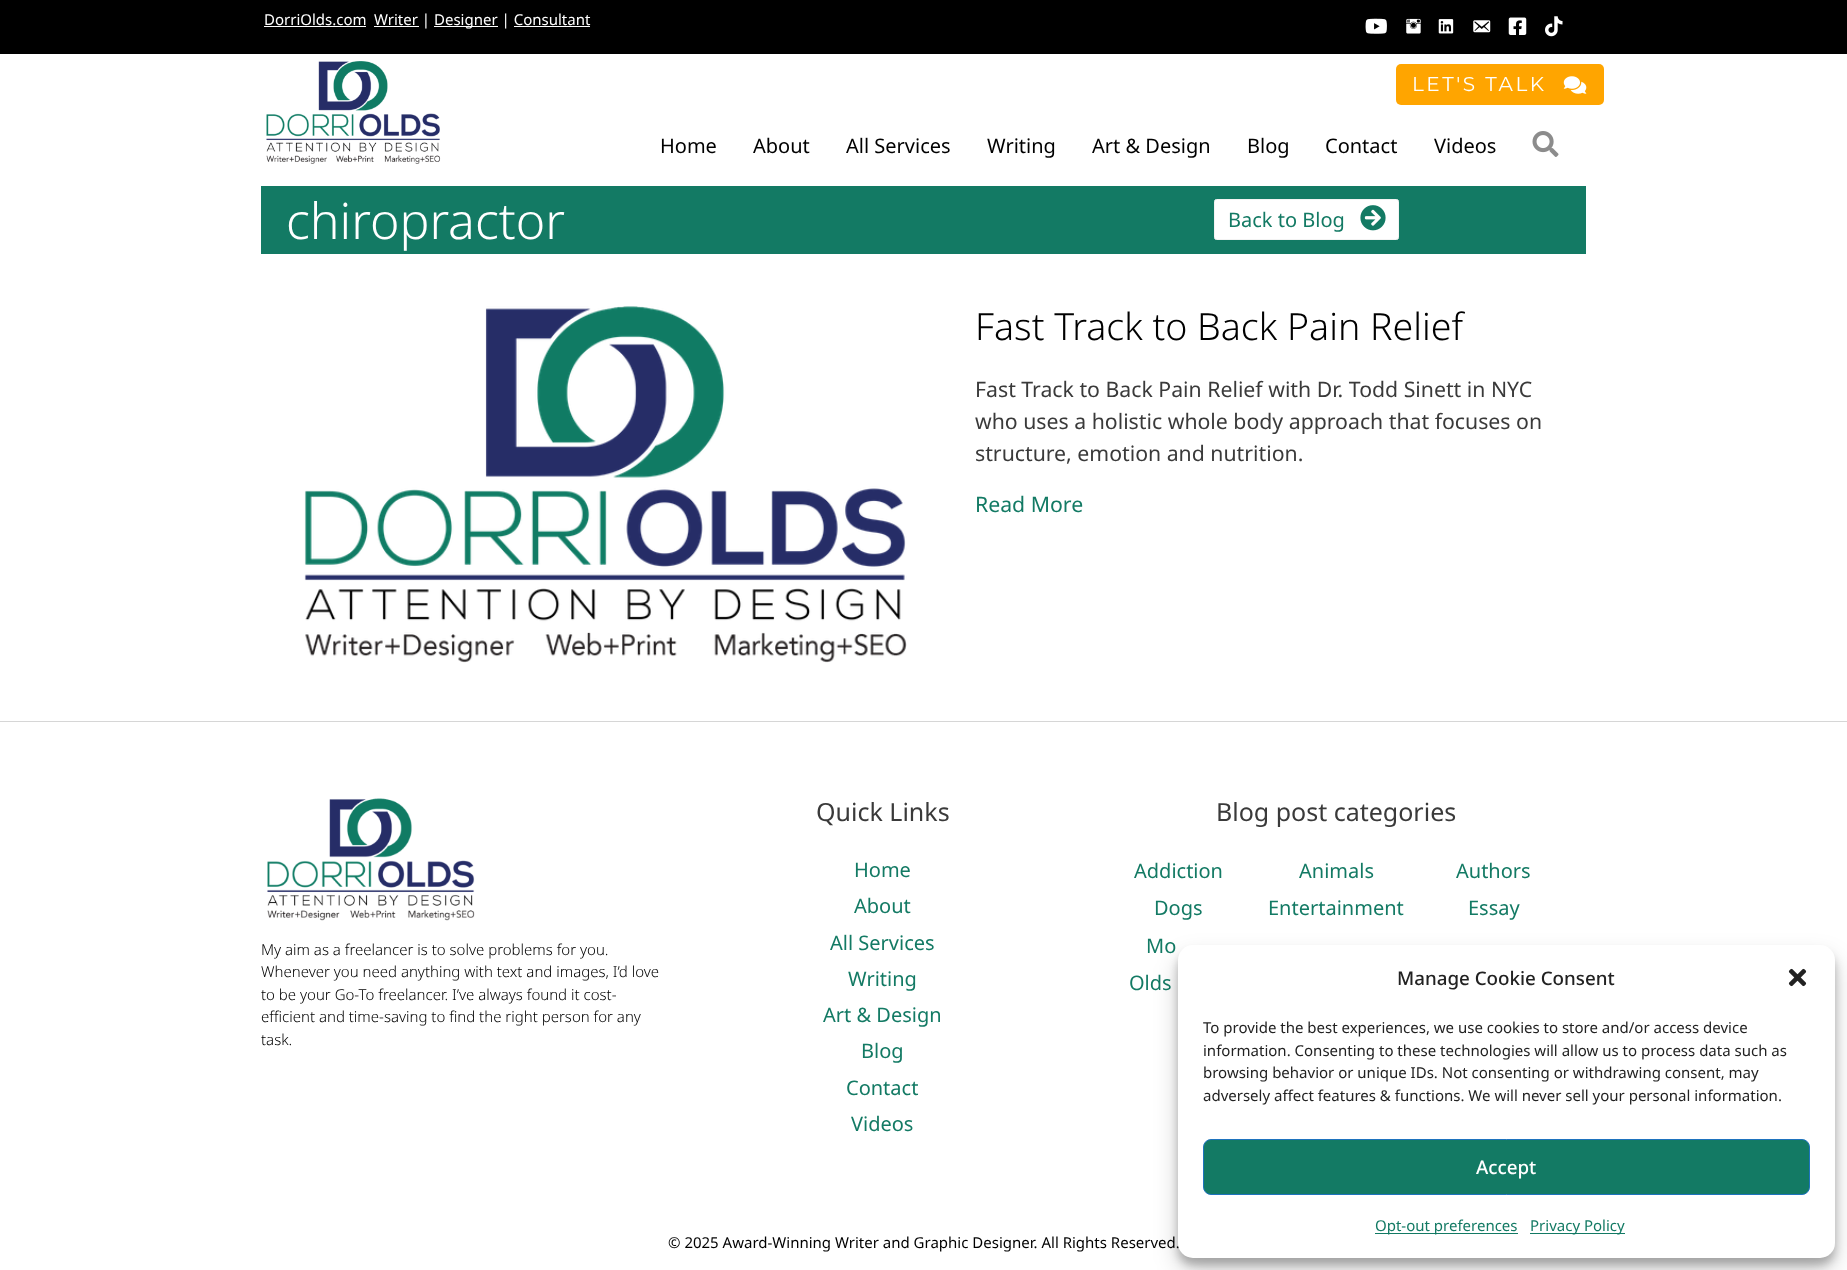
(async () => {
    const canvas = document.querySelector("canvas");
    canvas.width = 1847;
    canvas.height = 1270;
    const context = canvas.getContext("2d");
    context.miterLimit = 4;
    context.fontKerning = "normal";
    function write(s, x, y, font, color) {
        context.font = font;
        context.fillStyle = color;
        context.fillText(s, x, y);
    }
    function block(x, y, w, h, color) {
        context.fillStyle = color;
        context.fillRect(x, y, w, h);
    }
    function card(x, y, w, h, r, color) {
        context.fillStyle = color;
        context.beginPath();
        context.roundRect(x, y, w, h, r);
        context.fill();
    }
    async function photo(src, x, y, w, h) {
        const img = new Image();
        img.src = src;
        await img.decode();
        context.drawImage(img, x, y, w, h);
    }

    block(0, 0, 1847, 1270, "rgb(255, 255, 255)");
    block(0, 0, 1847, 54, "rgb(0, 0, 0)");
    write("DorriOlds.com", 264, 25, "15px Noto Sans", "rgb(255, 255, 255)");
    block(264, 26, 102, 1, "rgb(255, 255, 255)");
    block(374, 26, 45, 1, "rgb(255, 255, 255)");
    write("Writer |", 374, 25, "15px Noto Sans", "rgb(255, 255, 255)");
    block(434, 26, 64, 1, "rgb(255, 255, 255)");
    write("Designer | Consultant", 434, 25, "15px Noto Sans", "rgb(255, 255, 255)");
    block(514, 26, 76, 1, "rgb(255, 255, 255)");
    await photo("media/1.png", 1365, 18, 22, 16);
    await photo("media/2.png", 1406, 18, 15, 16);
    await photo("media/3.png", 1438, 19, 16, 15);
    await photo("media/4.png", 1473, 20, 18, 13);
    await photo("media/5.png", 1508, 17, 19, 18);
    await photo("media/6.png", 1545, 16, 18, 21);
    await photo("media/7.png", 266, 61, 175, 103);
    card(1396, 64, 208, 41, 5, "rgb(255, 165, 0)");
    context.letterSpacing = "2.5px";
    write("LET'S TALK", 1412, 91, "100 20px Montserrat", "rgb(255, 255, 255)");
    await photo("media/8.png", 1563, 76, 24, 18);
    context.letterSpacing = "0px";
    write("Home", 660, 153, "20px Noto Sans", "rgb(0, 0, 0)");
    write("About", 753, 153, "20px Noto Sans", "rgb(0, 0, 0)");
    write("All Services", 846, 153, "20px Noto Sans", "rgb(0, 0, 0)");
    write("Writing", 987, 153, "20px Noto Sans", "rgb(0, 0, 0)");
    write("Art & Design", 1092, 153, "20px Noto Sans", "rgb(0, 0, 0)");
    write("Blog", 1247, 153, "20px Noto Sans", "rgb(0, 0, 0)");
    write("Contact", 1325, 153, "20px Noto Sans", "rgb(0, 0, 0)");
    write("Videos", 1434, 153, "20px Noto Sans", "rgb(0, 0, 0)");
    await photo("media/9.png", 1532, 131, 27, 26);
    block(261, 186, 1325, 68, "rgb(19, 122, 100)");
    write("chiropractor", 286, 239, "300 50px Noto Sans", "rgb(255, 255, 255)");
    context.beginPath();
    context.roundRect(1214.5, 199.5, 184, 40, 2);
    context.fill();
    context.strokeStyle = "rgb(243, 243, 243)";
    context.stroke();
    write("Back to Blog", 1228, 227, "20px Noto Sans", "rgb(19, 122, 100)");
    await photo("media/10.png", 1360, 205, 26, 26);
    await photo("media/11.png", 304, 306, 603, 357);
    write("Fast Track to Back Pain Relief", 975, 340, "300 37.5px Noto Sans", "rgb(0, 0, 0)");
    write("Fast Track to Back Pain Relief with Dr. Todd Sinett in NYC", 975, 397, "21.25px Noto Sans", "rgb(58, 58, 58)");
    write("who uses a holistic whole body approach that focuses on", 975, 429, "21.25px Noto Sans", "rgb(58, 58, 58)");
    write("structure, emotion and nutrition.", 975, 461, "21.25px Noto Sans", "rgb(58, 58, 58)");
    write("Read More", 975, 512, "21.25px Noto Sans", "rgb(19, 122, 100)");
    block(0, 721, 1847, 1, "rgb(214, 214, 214)");
    await photo("media/12.png", 267, 798, 208, 123);
    write("My aim as a freelancer is to solve problems for you.", 261, 955, "300 15px Noto Sans", "rgb(0, 0, 0)");
    write("Whenever you need anything with text and images, I’d love", 261, 977, "300 15px Noto Sans", "rgb(0, 0, 0)");
    write("to be your Go-To freelancer. I’ve always found it cost-", 261, 1000, "300 15px Noto Sans", "rgb(0, 0, 0)");
    write("efficient and time-saving to find the right person for any", 261, 1022, "300 15px Noto Sans", "rgb(0, 0, 0)");
    write("task.", 261, 1045, "300 15px Noto Sans", "rgb(0, 0, 0)");
    write("Quick Links", 816, 821, "25px Noto Sans", "rgb(58, 58, 58)");
    write("Home", 854, 877, "20px Noto Sans", "rgb(19, 122, 100)");
    write("About", 854, 913, "20px Noto Sans", "rgb(19, 122, 100)");
    write("All Services", 830, 950, "20px Noto Sans", "rgb(19, 122, 100)");
    write("Writing", 848, 986, "20px Noto Sans", "rgb(19, 122, 100)");
    write("Art & Design", 823, 1022, "20px Noto Sans", "rgb(19, 122, 100)");
    write("Blog", 861, 1058, "20px Noto Sans", "rgb(19, 122, 100)");
    write("Contact", 846, 1095, "20px Noto Sans", "rgb(19, 122, 100)");
    write("Videos", 851, 1131, "20px Noto Sans", "rgb(19, 122, 100)");
    write("Blog post categories", 1216, 821, "25px Noto Sans", "rgb(58, 58, 58)");
    write("Addiction", 1134, 878, "20px Noto Sans", "rgb(19, 122, 100)");
    write("Animals", 1299, 878, "20px Noto Sans", "rgb(19, 122, 100)");
    write("Authors", 1456, 878, "20px Noto Sans", "rgb(19, 122, 100)");
    write("Dogs", 1154, 915, "20px Noto Sans", "rgb(19, 122, 100)");
    write("Entertainment", 1268, 915, "20px Noto Sans", "rgb(19, 122, 100)");
    write("Essay", 1468, 915, "20px Noto Sans", "rgb(19, 122, 100)");
    write("Mo", 1146, 953, "20px Noto Sans", "rgb(19, 122, 100)");
    write("Olds", 1129, 990, "20px Noto Sans", "rgb(19, 122, 100)");
    write("© 2025 Award-Winning Writer and Graphic Designer. All Rights Reserved.", 668, 1248, "15px Noto Sans", "rgb(0, 0, 0)");
    context.fillStyle = "rgba(0, 0, 0, 0.23)";
    context.filter = "blur(4px)";
    context.beginPath();
    context.roundRect(1178, 953, 657, 312, 15);
    context.fill();
    context.filter = "none";
    context.fillStyle = "rgba(0, 0, 0, 0.19)";
    context.filter = "blur(12.5px)";
    context.beginPath();
    context.roundRect(1178, 958, 657, 312, 15);
    context.fill();
    context.filter = "none";
    card(1178, 945, 657, 313, 15, "rgb(255, 255, 255)");
    write("Manage Cookie Consent", 1397, 985, "500 18.75px Noto Sans", "rgb(34, 34, 34)");
    await photo("media/13.png", 1788, 968, 19, 19);
    write("To provide the best experiences, we use cookies to store and/or access device", 1203, 1033, "15px Noto Sans", "rgb(34, 34, 34)");
    write("information. Consenting to these technologies will allow us to process data such as", 1203, 1056, "15px Noto Sans", "rgb(34, 34, 34)");
    write("browsing behavior or unique IDs. Not consenting or withdrawing consent, may", 1203, 1078, "15px Noto Sans", "rgb(34, 34, 34)");
    write("adversely affect features & functions. We will never sell your personal information.", 1203, 1101, "15px Noto Sans", "rgb(34, 34, 34)");
    context.fillStyle = "rgb(19, 122, 100)";
    context.beginPath();
    context.roundRect(1203.5, 1139.5, 606, 55, 7.5);
    context.fill();
    context.strokeStyle = "rgb(30, 115, 190)";
    context.stroke();
    write("Accept", 1476, 1174, "500 18.75px Noto Sans", "rgb(255, 255, 255)");
    block(1375, 1233, 143, 1, "rgb(19, 122, 100)");
    write("Opt-out preferences", 1375, 1231, "15px Noto Sans", "rgb(19, 122, 100)");
    block(1530, 1233, 95, 1, "rgb(19, 122, 100)");
    write("Privacy Policy", 1530, 1231, "15px Noto Sans", "rgb(19, 122, 100)");
})();
